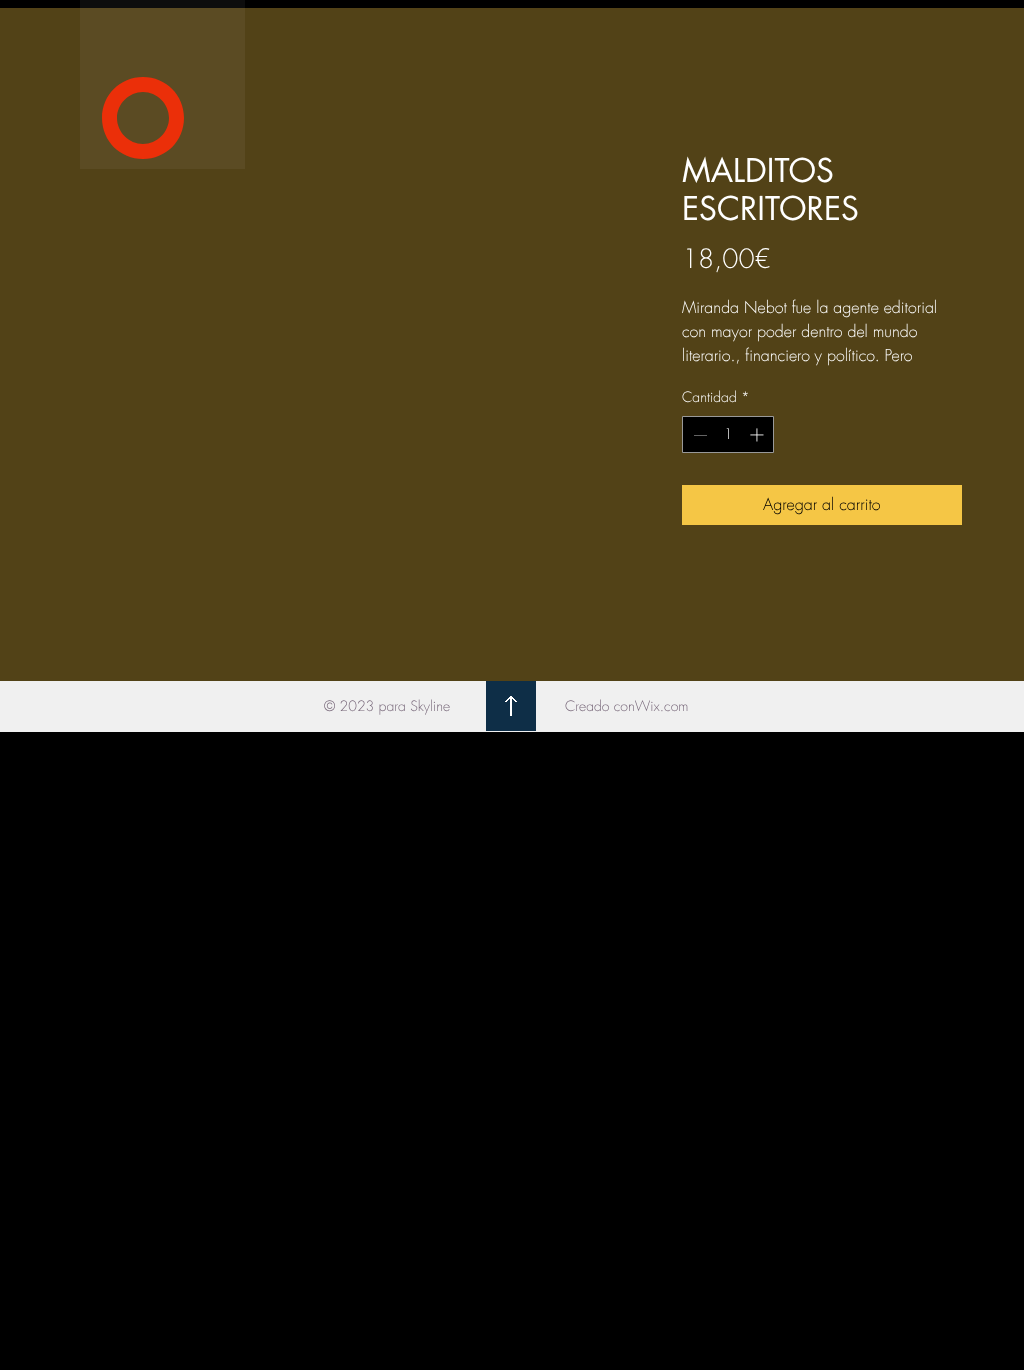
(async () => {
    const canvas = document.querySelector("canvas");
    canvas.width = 1024;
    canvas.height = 1370;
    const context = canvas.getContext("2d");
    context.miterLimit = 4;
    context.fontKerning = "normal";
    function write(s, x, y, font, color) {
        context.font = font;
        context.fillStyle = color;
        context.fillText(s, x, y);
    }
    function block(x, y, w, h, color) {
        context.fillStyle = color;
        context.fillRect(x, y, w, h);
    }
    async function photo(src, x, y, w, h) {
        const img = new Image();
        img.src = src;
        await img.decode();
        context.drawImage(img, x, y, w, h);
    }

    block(0, 0, 1024, 1370, "rgb(0, 0, 0)");
    block(80, 0, 165, 8, "rgb(13, 13, 13)");
    block(0, 8, 1024, 673, "rgb(82, 66, 23)");
    block(80, 8, 165, 161, "rgb(91, 75, 35)");
    context.fillStyle = "rgb(235, 47, 9)";
    context.beginPath();
    context.moveTo(143, 77);
    context.bezierCurveTo(120, 77, 102, 95, 102, 118);
    context.bezierCurveTo(102, 141, 120, 159, 143, 159);
    context.bezierCurveTo(166, 159, 184, 141, 184, 118);
    context.bezierCurveTo(184, 95, 166, 77, 143, 77);
    context.closePath();
    context.moveTo(143, 144);
    context.bezierCurveTo(129, 144, 117, 132, 117, 118);
    context.bezierCurveTo(117, 104, 129, 92, 143, 92);
    context.bezierCurveTo(157, 92, 169, 104, 169, 118);
    context.bezierCurveTo(169, 132, 157, 144, 143, 144);
    context.closePath();
    context.fill();
    write("MALDITOS", 682, 182, "32px futura", "rgb(255, 255, 255)");
    write("ESCRITORES", 682, 220, "32px futura", "rgb(255, 255, 255)");
    write("18,00€", 682, 268, "300 26px futura", "rgb(255, 255, 255)");
    write("Miranda Nebot fue la agente editorial", 682, 313, "300 16px futura", "rgb(255, 255, 255)");
    write("con mayor poder dentro del mundo", 682, 337, "300 16px futura", "rgb(255, 255, 255)");
    write("literario., financiero y político. Pero", 682, 361, "300 16px futura", "rgb(255, 255, 255)");
    write("Cantidad", 682, 402, "300 14px futura", "rgb(255, 255, 255)");
    write("*", 741, 402, "300 14px futura", "rgb(255, 255, 255)");
    context.fillStyle = "rgb(0, 0, 0)";
    context.beginPath();
    context.rect(682.5, 416.5, 91, 36);
    context.fill();
    context.strokeStyle = "rgb(153, 153, 153)";
    context.stroke();
    block(694, 435, 13, 1, "rgb(100, 100, 100)");
    write("1", 724, 439, "300 14px futura", "rgb(255, 255, 255)");
    await photo("media/1.png", 750, 428, 14, 14);
    block(682, 485, 280, 40, "rgb(245, 198, 69)");
    write("Agregar al carrito", 763, 510, "300 16px futura", "rgb(0, 0, 0)");
    block(0, 681, 1024, 51, "rgb(240, 240, 240)");
    write("© 2023 para Skyline", 324, 711, "300 14px futura", "rgb(120, 104, 122)");
    await photo("media/2.png", 486, 681, 50, 50);
    write("Creado conWix.com", 565, 711, "300 14px futura", "rgb(120, 104, 122)");
})();
